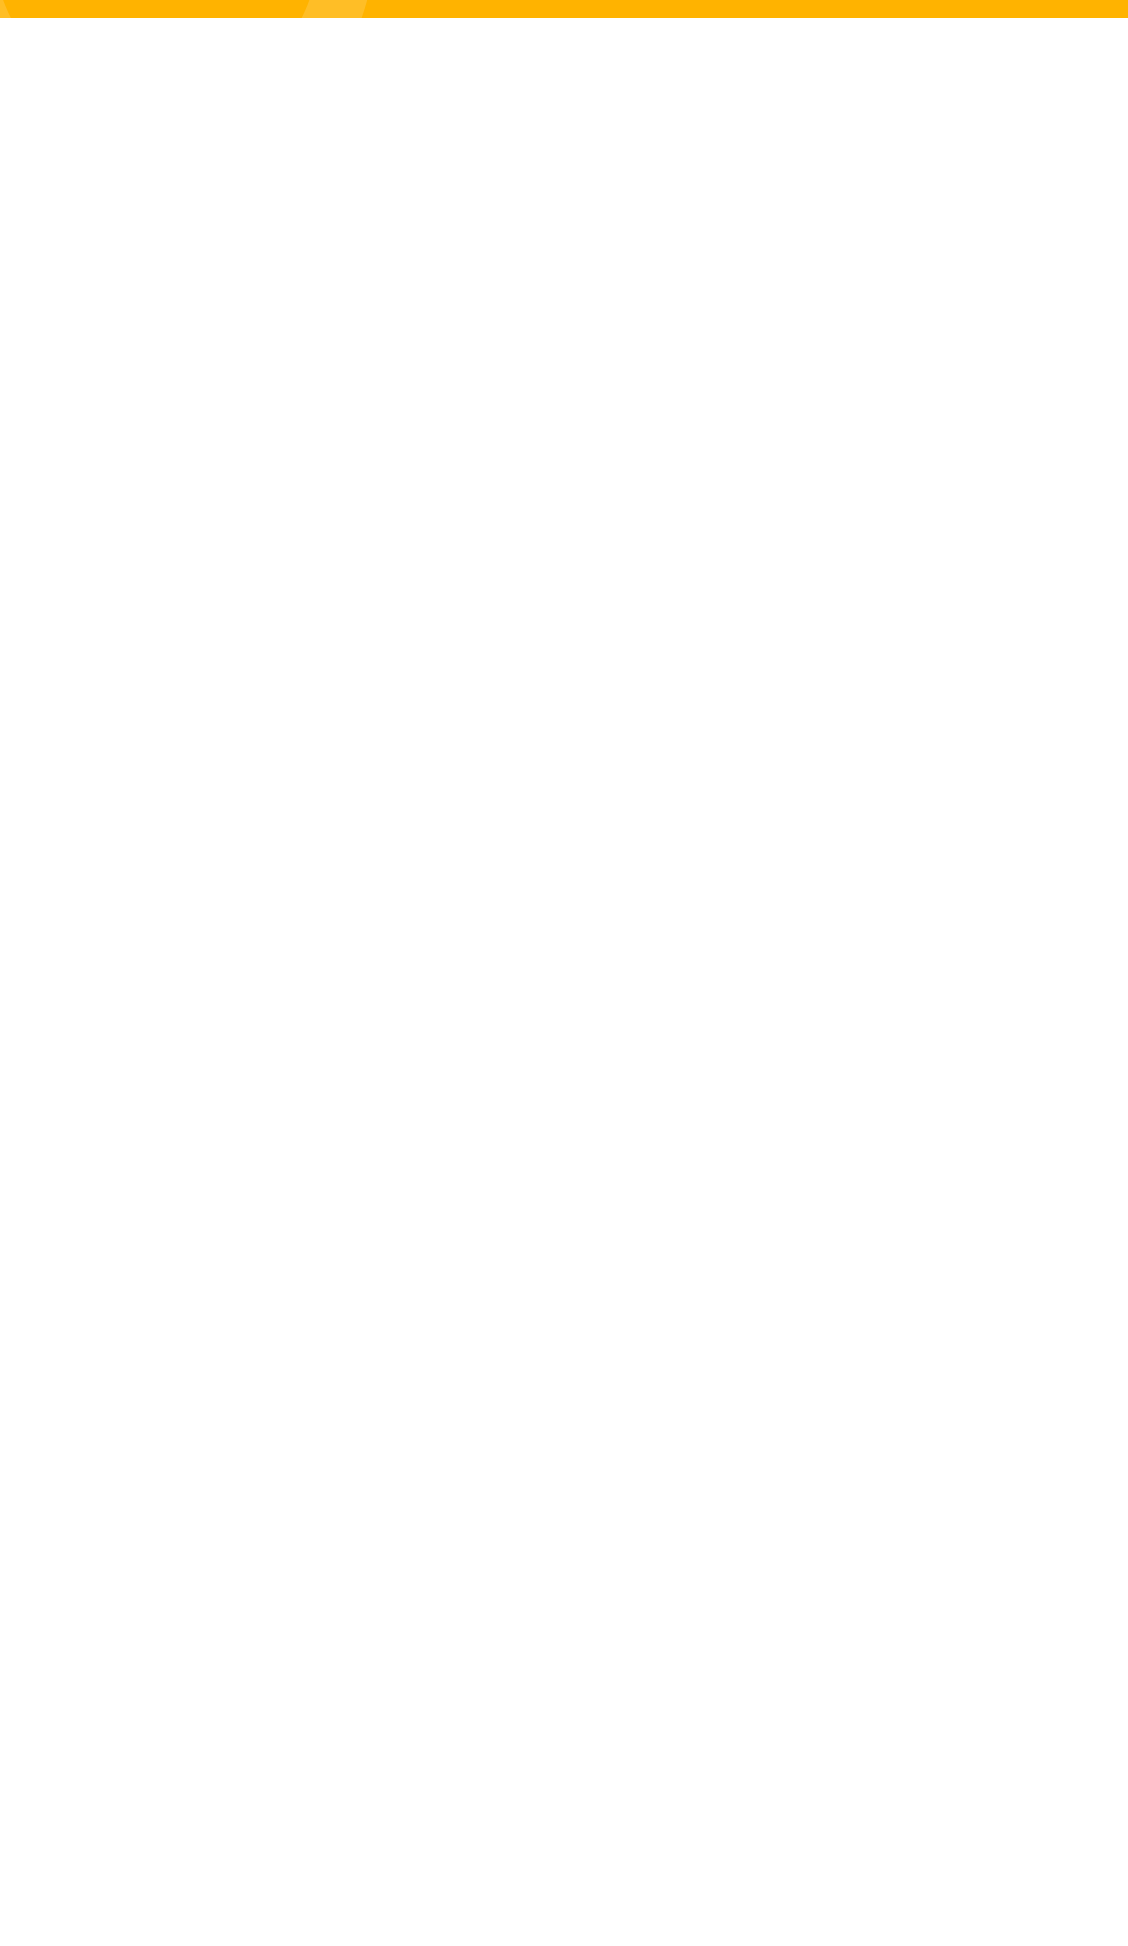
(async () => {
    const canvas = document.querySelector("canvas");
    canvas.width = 1128;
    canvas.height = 1946;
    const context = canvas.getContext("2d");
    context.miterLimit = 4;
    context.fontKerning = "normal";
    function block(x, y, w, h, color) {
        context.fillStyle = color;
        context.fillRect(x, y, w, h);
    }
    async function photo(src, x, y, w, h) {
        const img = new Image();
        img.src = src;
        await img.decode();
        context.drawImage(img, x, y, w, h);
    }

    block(0, 0, 1128, 1946, "rgb(255, 255, 255)");
    block(0, 0, 1128, 18, "rgb(255, 179, 0)");
    await photo("media/1.png", 0, 0, 367, 18);
})();
